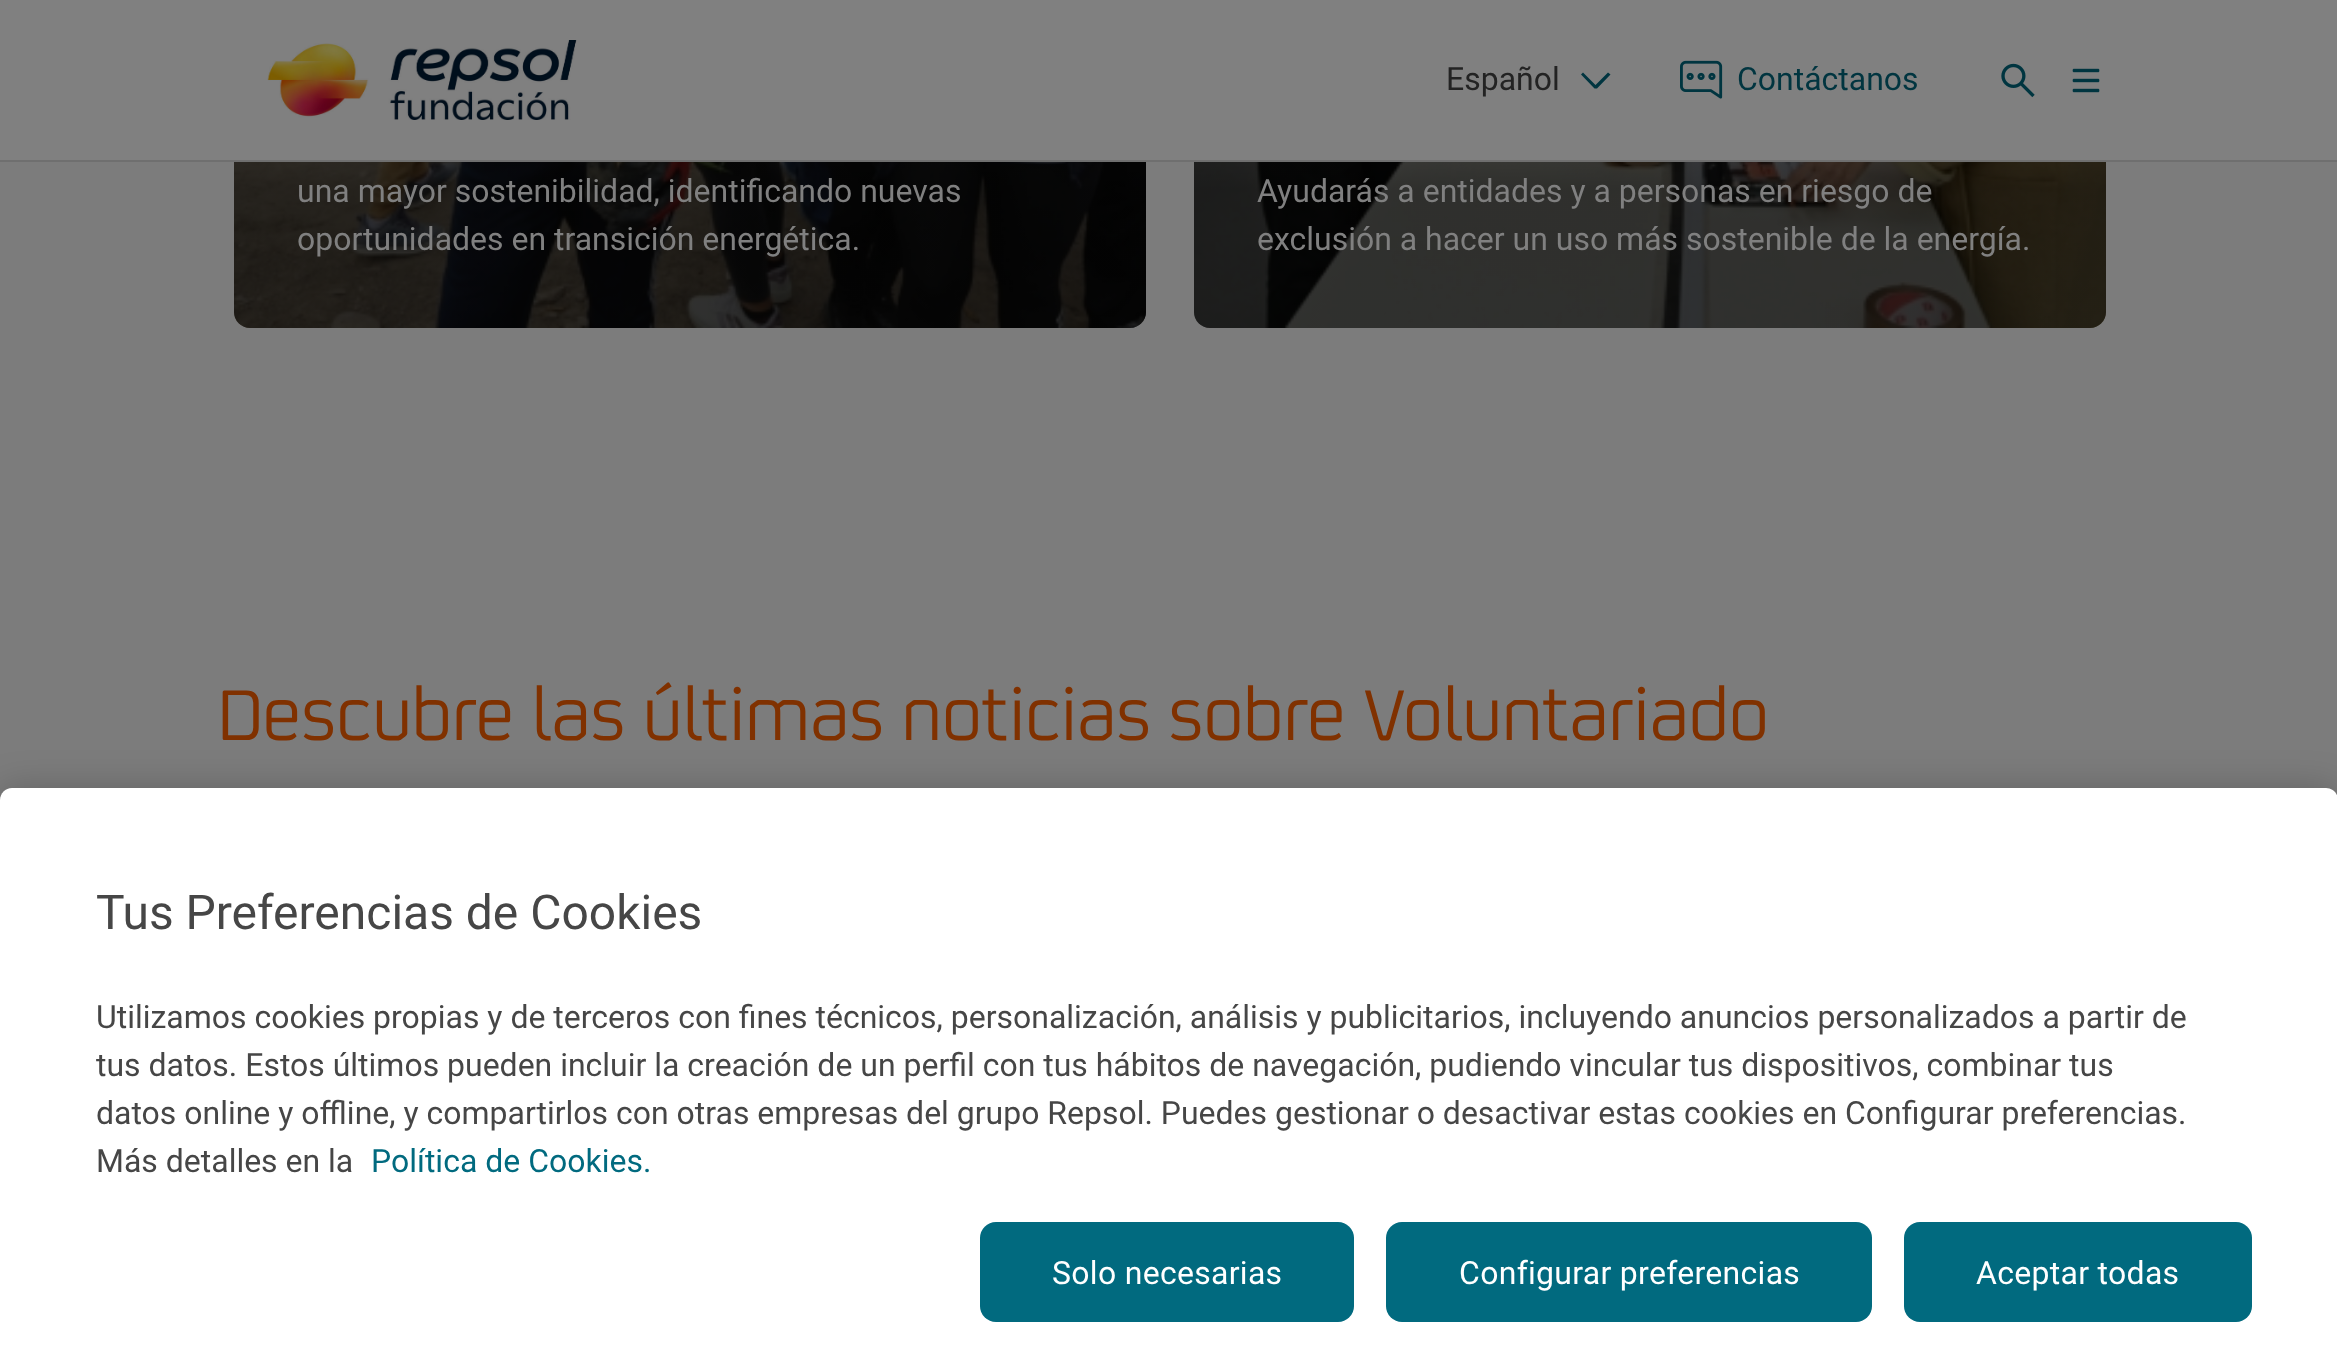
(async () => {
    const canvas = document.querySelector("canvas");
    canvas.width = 2337;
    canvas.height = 1369;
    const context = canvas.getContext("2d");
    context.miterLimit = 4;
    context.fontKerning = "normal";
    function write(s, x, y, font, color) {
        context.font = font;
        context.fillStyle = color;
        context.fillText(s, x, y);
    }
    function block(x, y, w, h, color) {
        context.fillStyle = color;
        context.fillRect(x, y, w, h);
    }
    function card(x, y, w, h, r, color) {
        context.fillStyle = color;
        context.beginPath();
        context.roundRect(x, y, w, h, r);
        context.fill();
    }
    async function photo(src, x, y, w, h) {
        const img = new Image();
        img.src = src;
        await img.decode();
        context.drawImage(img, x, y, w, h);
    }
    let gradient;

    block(0, 0, 2337, 1369, "rgb(124, 124, 124)");
    await photo("media/5.png", 234, 162, 912, 166);
    gradient = context.createLinearGradient(690, -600, 690, 328);
    gradient.addColorStop(0.56, "rgba(0, 0, 0, 0)");
    gradient.addColorStop(0.85, "rgba(0, 0, 0, 0.6)");
    context.fillStyle = gradient;
    context.beginPath();
    context.roundRect(234, -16, 912, 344, 16);
    context.fill();
    await photo("media/6.png", 1194, 162, 912, 166);
    gradient = context.createLinearGradient(1650, -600, 1650, 328);
    gradient.addColorStop(0.56, "rgba(0, 0, 0, 0)");
    gradient.addColorStop(0.85, "rgba(0, 0, 0, 0.6)");
    context.fillStyle = gradient;
    context.beginPath();
    context.roundRect(1194, -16, 912, 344, 16);
    context.fill();
    block(0, 0, 2337, 160, "rgb(128, 128, 128)");
    block(0, 160, 2337, 2, "rgb(111, 111, 111)");
    await photo("media/1.png", 267, 40, 310, 80);
    write("Español", 1446, 90, "32px Roboto", "rgb(35, 35, 35)");
    context.fillStyle = "rgb(1, 53, 64)";
    context.beginPath();
    context.moveTo(1581, 74.5);
    context.lineTo(1583, 72.5);
    context.lineTo(1595.5, 85);
    context.lineTo(1608, 72.5);
    context.lineTo(1610.5, 74.5);
    context.lineTo(1597, 88.5);
    context.lineTo(1594.5, 88.5);
    context.closePath();
    context.fill();
    await photo("media/2.png", 1680, 60, 43, 39);
    write("Contáctanos", 1737, 90, "32px Roboto", "rgb(1, 53, 64)");
    await photo("media/3.png", 2001, 63, 34, 35);
    await photo("media/4.png", 2072, 68, 28, 25);
    write("una mayor sostenibilidad, identificando nuevas", 297, 202, "32px Roboto", "rgb(128, 128, 128)");
    write("oportunidades en transición energética.", 297, 250, "32px Roboto", "rgb(128, 128, 128)");
    write("Ayudarás a entidades y a personas en riesgo de", 1257, 202, "32px Roboto", "rgb(128, 128, 128)");
    write("exclusión a hacer un uso más sostenible de la energía.", 1257, 250, "32px Roboto", "rgb(128, 128, 128)");
    context.letterSpacing = "-1px";
    write("Descubre las últimas noticias sobre Voluntariado", 217, 740, "80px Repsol", "rgb(128, 49, 0)");
    context.fillStyle = "rgba(0, 0, 0, 0.2)";
    context.filter = "blur(18px)";
    context.beginPath();
    context.roundRect(0, 788, 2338, 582, 12);
    context.fill();
    context.filter = "none";
    context.fillStyle = "rgb(255, 255, 255)";
    context.beginPath();
    context.moveTo(12, 788);
    context.lineTo(2326, 788);
    context.bezierCurveTo(2332.5, 788, 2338, 793.5, 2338, 800);
    context.lineTo(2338, 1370);
    context.lineTo(0, 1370);
    context.lineTo(0, 800);
    context.bezierCurveTo(0, 793.5, 5.5, 788, 12, 788);
    context.closePath();
    context.fill();
    context.letterSpacing = "0px";
    write("Tus Preferencias de Cookies", 96, 929, "48px Roboto", "rgb(70, 70, 70)");
    write("Utilizamos cookies propias y de terceros con fines técnicos, personalización, análisis y publicitarios, incluyendo anuncios personalizados a partir de", 96, 1028, "32px Roboto", "rgb(70, 70, 70)");
    write("tus datos. Estos últimos pueden incluir la creación de un perfil con tus hábitos de navegación, pudiendo vincular tus dispositivos, combinar tus", 96, 1076, "32px Roboto", "rgb(70, 70, 70)");
    write("datos online y offline, y compartirlos con otras empresas del grupo Repsol. Puedes gestionar o desactivar estas cookies en Configurar preferencias.", 96, 1124, "32px Roboto", "rgb(70, 70, 70)");
    write("Más detalles en la", 96, 1172, "32px Roboto", "rgb(70, 70, 70)");
    write("Política de Cookies.", 371, 1172, "32px Roboto", "rgb(1, 106, 127)");
    card(980, 1222, 374, 100, 16, "rgb(1, 106, 127)");
    context.letterSpacing = "0.3px";
    write("Solo necesarias", 1052, 1284, "32px Roboto", "rgb(255, 255, 255)");
    card(1386, 1222, 486, 100, 16, "rgb(1, 106, 127)");
    write("Configurar preferencias", 1459, 1284, "32px Roboto", "rgb(255, 255, 255)");
    card(1904, 1222, 348, 100, 16, "rgb(1, 106, 127)");
    write("Aceptar todas", 1976, 1284, "32px Roboto", "rgb(255, 255, 255)");
})();
